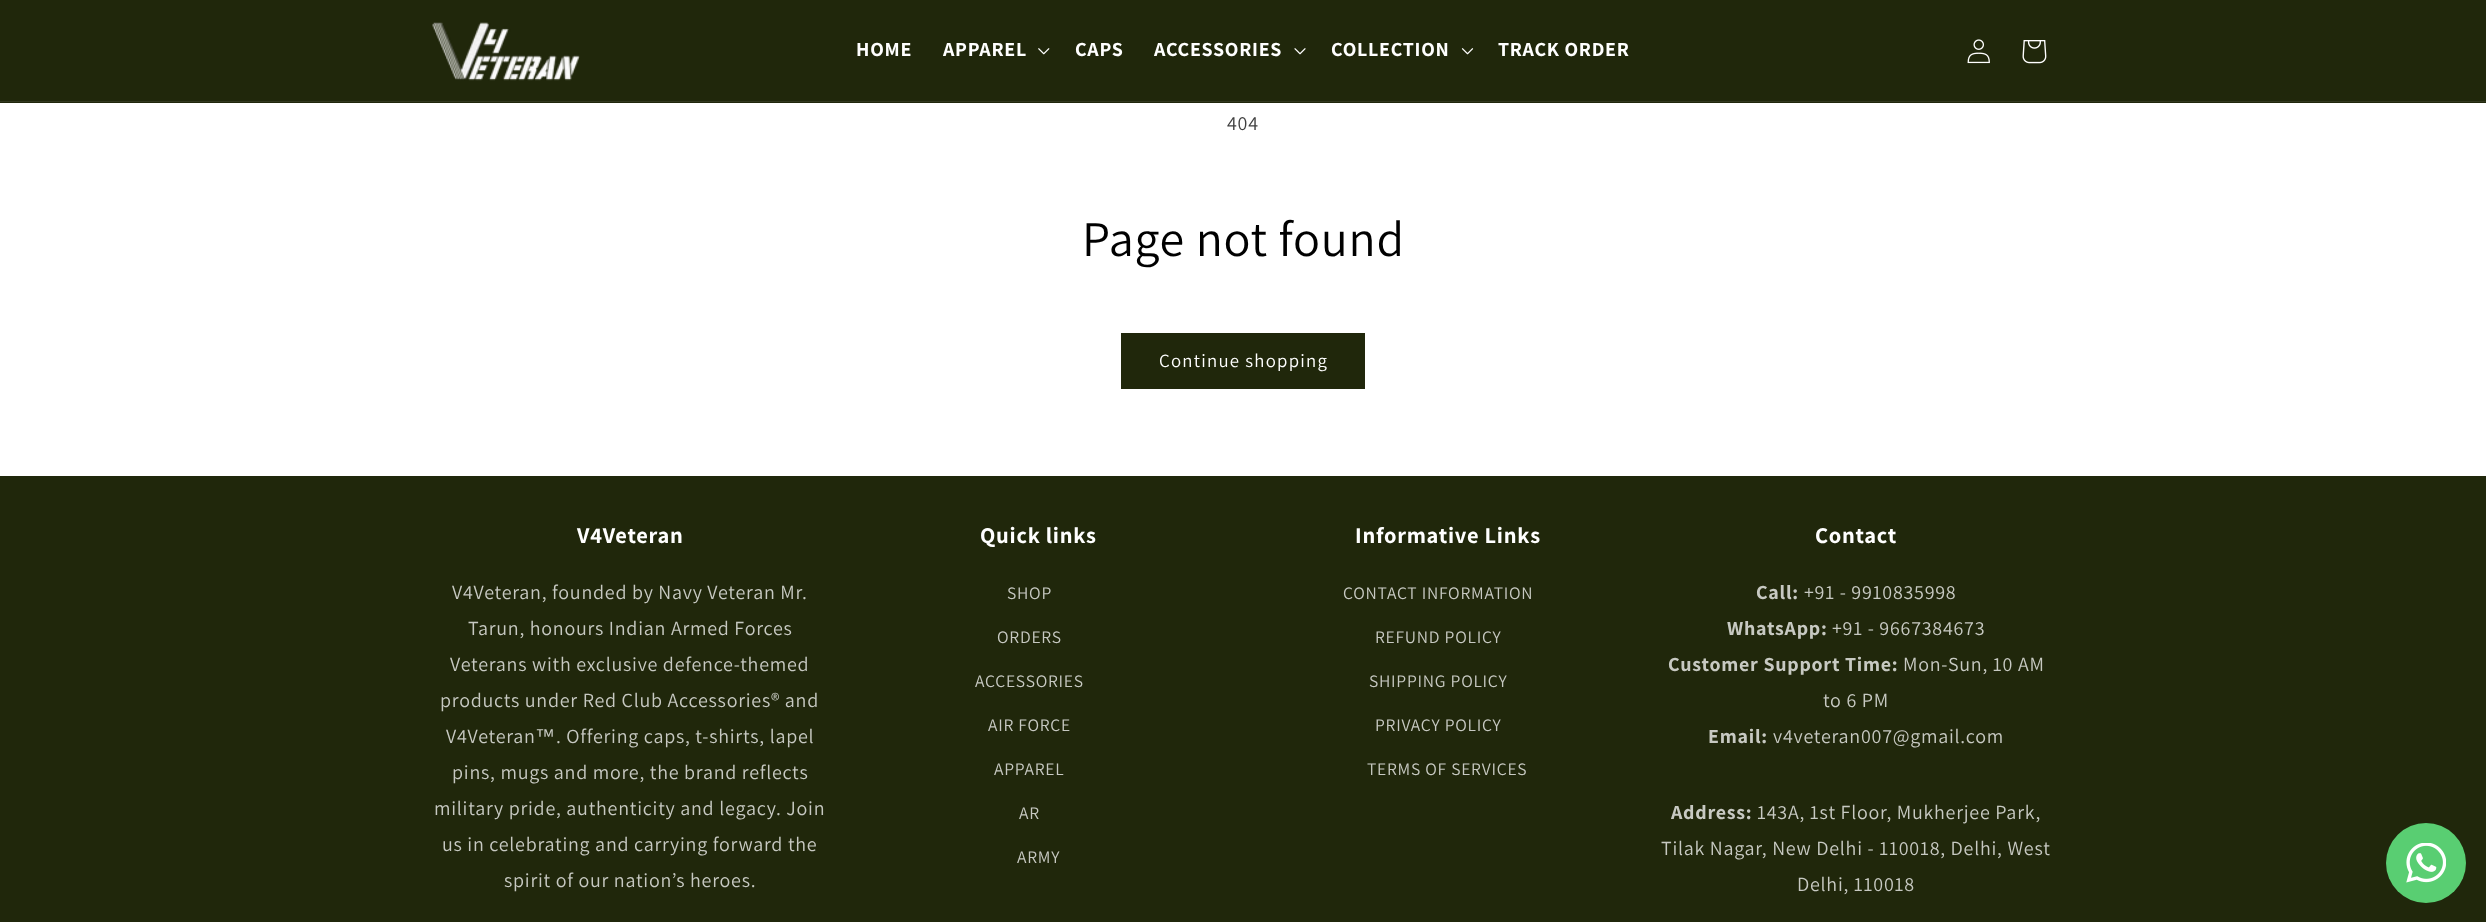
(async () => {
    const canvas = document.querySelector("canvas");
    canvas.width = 2486;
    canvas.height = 922;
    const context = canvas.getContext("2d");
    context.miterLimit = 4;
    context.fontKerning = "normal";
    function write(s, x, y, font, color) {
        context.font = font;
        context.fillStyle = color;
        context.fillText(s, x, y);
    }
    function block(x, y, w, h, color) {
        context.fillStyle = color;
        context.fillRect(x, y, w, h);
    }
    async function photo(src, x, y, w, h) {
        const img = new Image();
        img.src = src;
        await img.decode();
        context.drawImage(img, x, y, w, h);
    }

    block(0, 0, 2486, 922, "rgb(255, 255, 255)");
    block(0, 0, 2486, 103, "rgb(32, 39, 11)");
    block(0, 101, 2486, 1, "rgb(50, 56, 31)");
    await photo("media/1.png", 432, 22, 148, 59);
    context.letterSpacing = "0.75px";
    write("HOME", 856, 56, "bold 20px Assistant", "rgb(255, 255, 255)");
    write("APPAREL", 943, 56, "bold 20px Assistant", "rgb(255, 255, 255)");
    await photo("media/2.png", 1038, 48, 12, 7);
    write("CAPS", 1075, 56, "bold 20px Assistant", "rgb(255, 255, 255)");
    write("ACCESSORIES", 1154, 56, "bold 20px Assistant", "rgb(255, 255, 255)");
    await photo("media/3.png", 1294, 48, 12, 7);
    write("COLLECTION", 1331, 56, "bold 20px Assistant", "rgb(255, 255, 255)");
    await photo("media/4.png", 1461, 48, 13, 7);
    write("TRACK ORDER", 1498, 56, "bold 20px Assistant", "rgb(255, 255, 255)");
    await photo("media/5.png", 1967, 39, 23, 25);
    await photo("media/6.png", 2022, 40, 25, 24);
    write("404", 1227, 130, "20px Assistant", "rgb(64, 64, 64)");
    write("Page not found", 1082, 256, "50px Assistant", "rgb(0, 0, 0)");
    block(1121, 333, 244, 56, "rgb(32, 39, 11)");
    context.letterSpacing = "1.25px";
    write("Continue shopping", 1159, 367, "18.75px Assistant", "rgb(255, 255, 255)");
    block(0, 476, 2486, 446, "rgb(32, 39, 11)");
    context.letterSpacing = "0.75px";
    write("V4Veteran", 577, 543, "bold 22.5px Assistant", "rgb(255, 255, 255)");
    write("V4Veteran, founded by Navy Veteran Mr.", 452, 599, "20px Assistant", "rgb(199, 201, 194)");
    write("Tarun, honours Indian Armed Forces", 468, 635, "20px Assistant", "rgb(199, 201, 194)");
    write("Veterans with exclusive defence-themed", 450, 671, "20px Assistant", "rgb(199, 201, 194)");
    write("products under Red Club Accessories® and", 440, 707, "20px Assistant", "rgb(199, 201, 194)");
    write("V4Veteran", 446, 743, "20px Assistant", "rgb(199, 201, 194)");
    write("™", 535, 743, "20px Liberation Sans", "rgb(199, 201, 194)");
    write(". Offering caps, t-shirts, lapel", 556, 743, "20px Assistant", "rgb(199, 201, 194)");
    write("pins, mugs and more, the brand reflects", 452, 779, "20px Assistant", "rgb(199, 201, 194)");
    write("military pride, authenticity and legacy. Join", 434, 815, "20px Assistant", "rgb(199, 201, 194)");
    write("us in celebrating and carrying forward the", 442, 851, "20px Assistant", "rgb(199, 201, 194)");
    write("spirit of our nation’s heroes.", 504, 887, "20px Assistant", "rgb(199, 201, 194)");
    write("Quick links", 980, 543, "bold 22.5px Assistant", "rgb(255, 255, 255)");
    write("SHOP", 1007, 599, "17.5px Assistant", "rgb(199, 201, 194)");
    write("ORDERS", 997, 643, "17.5px Assistant", "rgb(199, 201, 194)");
    write("ACCESSORIES", 975, 687, "17.5px Assistant", "rgb(199, 201, 194)");
    write("AIR FORCE", 988, 731, "17.5px Assistant", "rgb(199, 201, 194)");
    write("APPAREL", 994, 775, "17.5px Assistant", "rgb(199, 201, 194)");
    write("AR", 1019, 819, "17.5px Assistant", "rgb(199, 201, 194)");
    write("ARMY", 1017, 863, "17.5px Assistant", "rgb(199, 201, 194)");
    write("Informative Links", 1355, 543, "bold 22.5px Assistant", "rgb(255, 255, 255)");
    write("CONTACT INFORMATION", 1343, 599, "17.5px Assistant", "rgb(199, 201, 194)");
    write("REFUND POLICY", 1375, 643, "17.5px Assistant", "rgb(199, 201, 194)");
    write("SHIPPING POLICY", 1369, 687, "17.5px Assistant", "rgb(199, 201, 194)");
    write("PRIVACY POLICY", 1375, 731, "17.5px Assistant", "rgb(199, 201, 194)");
    write("TERMS OF SERVICES", 1367, 775, "17.5px Assistant", "rgb(199, 201, 194)");
    write("Contact", 1815, 543, "bold 22.5px Assistant", "rgb(255, 255, 255)");
    write("Call:", 1756, 599, "bold 20px Assistant", "rgb(199, 201, 194)");
    write("+91 - 9910835998", 1804, 599, "20px Assistant", "rgb(199, 201, 194)");
    write("WhatsApp:", 1727, 635, "bold 20px Assistant", "rgb(199, 201, 194)");
    write("+91 - 9667384673", 1832, 635, "20px Assistant", "rgb(199, 201, 194)");
    write("Customer Support Time:", 1668, 671, "bold 20px Assistant", "rgb(199, 201, 194)");
    write("Mon-Sun, 10 AM", 1903, 671, "20px Assistant", "rgb(199, 201, 194)");
    write("to 6 PM", 1823, 707, "20px Assistant", "rgb(199, 201, 194)");
    write("Email:", 1708, 743, "bold 20px Assistant", "rgb(199, 201, 194)");
    write("v4veteran007@gmail.com", 1773, 743, "20px Assistant", "rgb(199, 201, 194)");
    write("Address:", 1671, 819, "bold 20px Assistant", "rgb(199, 201, 194)");
    write("143A, 1st Floor, Mukherjee Park,", 1757, 819, "20px Assistant", "rgb(199, 201, 194)");
    write("Tilak Nagar, New Delhi - 110018, Delhi, West", 1661, 855, "20px Assistant", "rgb(199, 201, 194)");
    write("Delhi, 110018", 1797, 891, "20px Assistant", "rgb(199, 201, 194)");
    context.fillStyle = "rgb(89, 206, 114)";
    context.beginPath();
    context.arc(2426, 863, 40, 0, Math.PI * 2);
    context.fill();
    await photo("media/7.png", 2406, 843, 40, 40);
})();
